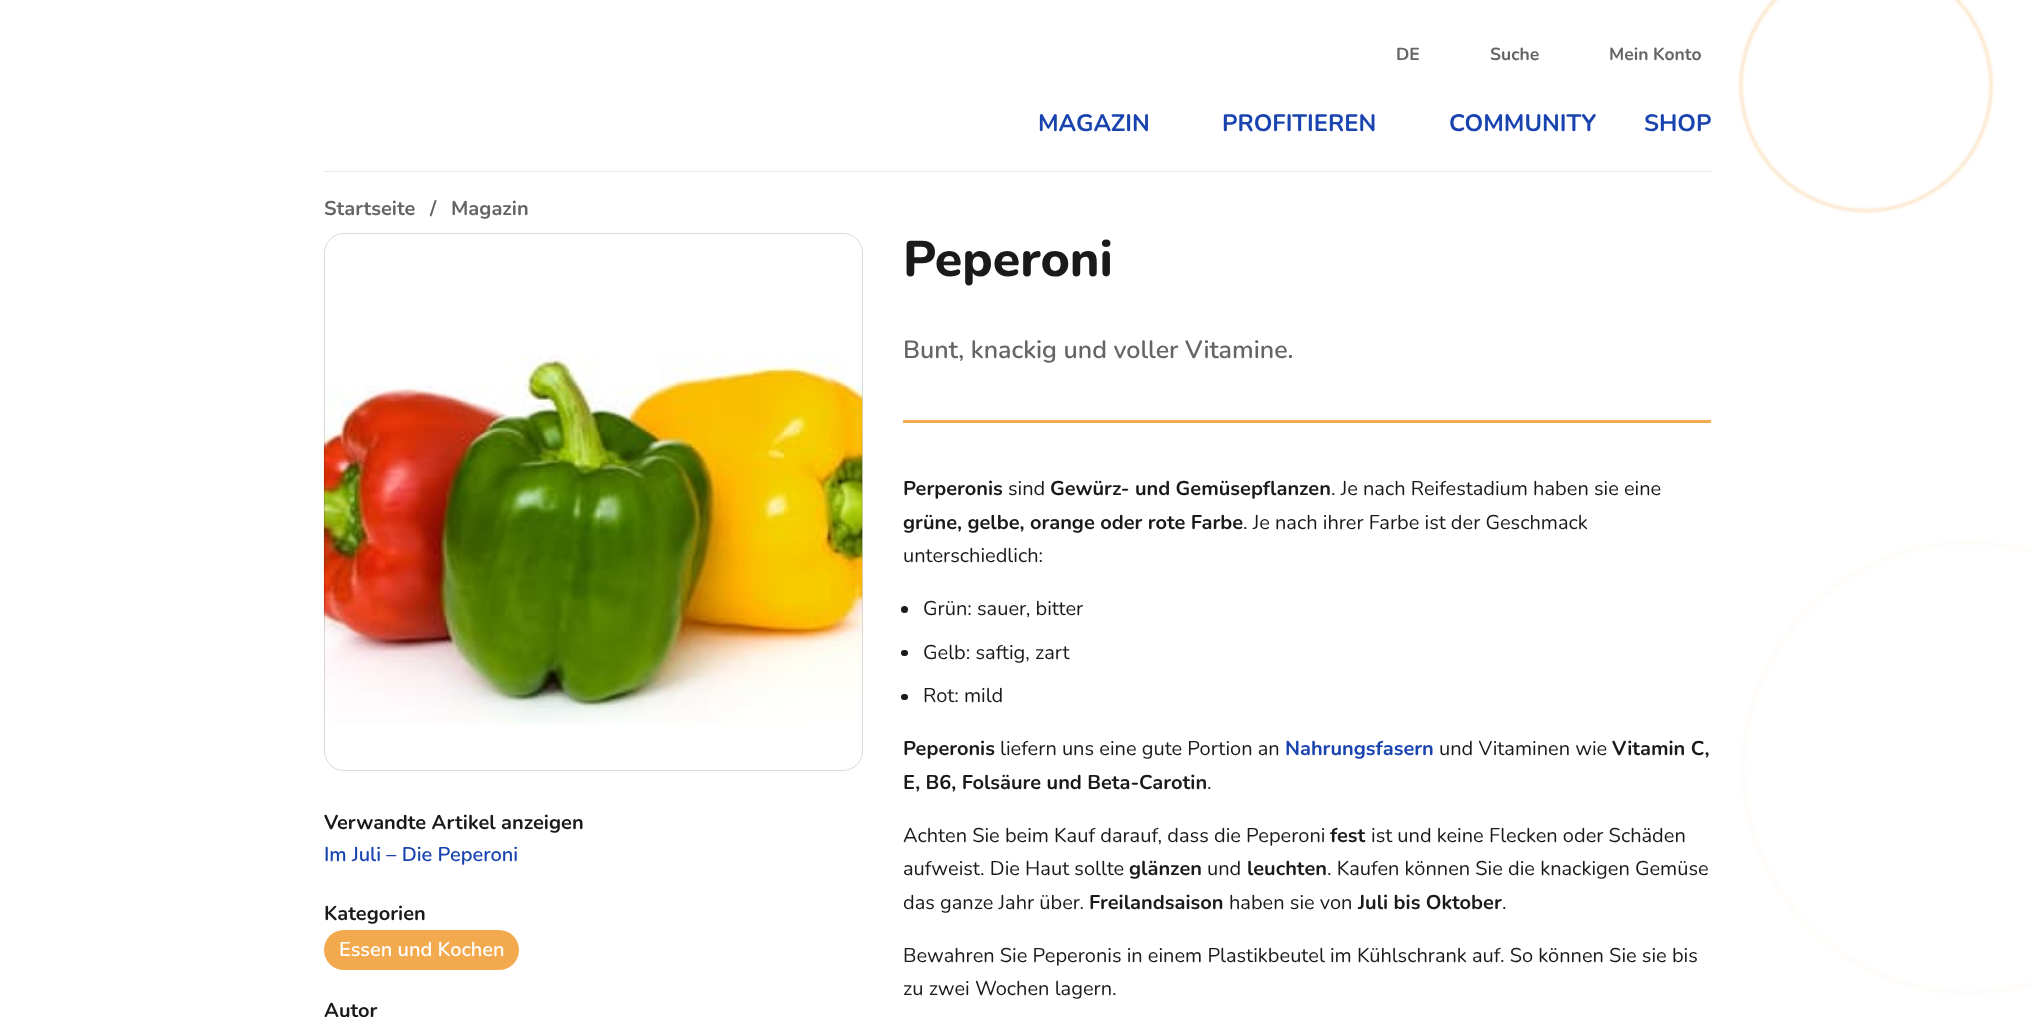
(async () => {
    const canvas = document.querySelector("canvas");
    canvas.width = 2034;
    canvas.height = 1017;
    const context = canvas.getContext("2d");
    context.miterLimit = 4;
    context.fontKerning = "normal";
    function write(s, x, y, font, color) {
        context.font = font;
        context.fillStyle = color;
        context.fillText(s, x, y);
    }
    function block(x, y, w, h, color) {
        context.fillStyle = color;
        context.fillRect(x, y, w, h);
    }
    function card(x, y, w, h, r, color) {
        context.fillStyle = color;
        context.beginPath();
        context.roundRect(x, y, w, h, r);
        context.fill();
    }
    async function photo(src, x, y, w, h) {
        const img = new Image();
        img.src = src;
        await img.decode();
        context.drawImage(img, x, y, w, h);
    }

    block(0, 0, 2034, 1017, "rgb(255, 255, 255)");
    block(324, 171, 1387, 1, "rgb(232, 232, 232)");
    write("DE", 1396, 60, "bold 17.5px Nunito", "rgb(101, 101, 101)");
    write("Suche", 1490, 60, "bold 17.5px Nunito", "rgb(101, 101, 101)");
    write("Mein Konto", 1609, 60, "bold 17.5px Nunito", "rgb(101, 101, 101)");
    write("MAGAZIN", 1038, 131, "bold 23.75px Nunito", "rgb(25, 68, 175)");
    write("PROFITIEREN", 1222, 131, "bold 23.75px Nunito", "rgb(25, 68, 175)");
    write("COMMUNITY", 1449, 131, "bold 23.75px Nunito", "rgb(25, 68, 175)");
    write("SHOP", 1644, 131, "bold 23.75px Nunito", "rgb(25, 68, 175)");
    write("Startseite", 324, 215, "bold 20px Nunito", "rgb(101, 101, 101)");
    write("/", 430, 215, "bold 20px Nunito", "rgb(101, 101, 101)");
    write("Magazin", 451, 215, "bold 20px Nunito", "rgb(101, 101, 101)");
    await photo("media/1.png", 323, 355, 540, 370);
    context.beginPath();
    context.roundRect(324.5, 233.5, 538, 537, 19.5);
    context.strokeStyle = "rgba(0, 0, 0, 0.15)";
    context.stroke();
    write("Peperoni", 903, 276, "800 50px Nunito", "rgb(26, 26, 26)");
    write("Verwandte Artikel anzeigen", 324, 829, "bold 20px Nunito", "rgb(26, 26, 26)");
    write("Im Juli – Die Peperoni", 324, 861, "600 20px Nunito", "rgb(25, 68, 175)");
    write("Kategorien", 324, 920, "bold 20px Nunito", "rgb(26, 26, 26)");
    card(324, 930, 195, 40, 20, "rgb(243, 170, 79)");
    write("Essen und Kochen", 339, 956, "600 20px Nunito", "rgb(255, 255, 255)");
    write("Autor", 324, 1017, "bold 20px Nunito", "rgb(26, 26, 26)");
    write("Bunt, knackig und voller Vitamine.", 903, 358, "600 25px Nunito", "rgb(101, 101, 101)");
    block(903, 420, 808, 3, "rgb(243, 170, 79)");
    write("Perperonis", 903, 495, "bold 20px Nunito", "rgb(26, 26, 26)");
    write("sind", 1008, 495, "20px Nunito", "rgb(26, 26, 26)");
    write("Gewürz- und Gemüsepflanzen", 1050, 495, "bold 20px Nunito", "rgb(26, 26, 26)");
    write(". Je nach Reifestadium haben sie eine", 1331, 495, "20px Nunito", "rgb(26, 26, 26)");
    write("grüne, gelbe, orange oder rote Farbe", 903, 529, "bold 20px Nunito", "rgb(26, 26, 26)");
    write(". Je nach ihrer Farbe ist der Geschmack", 1243, 529, "20px Nunito", "rgb(26, 26, 26)");
    write("unterschiedlich:", 903, 562, "20px Nunito", "rgb(26, 26, 26)");
    context.beginPath();
    context.arc(904.5, 609.5, 3.5, 0, Math.PI * 2);
    context.fill();
    write("Grün: sauer, bitter", 923, 615, "20px Nunito", "rgb(26, 26, 26)");
    card(901, 650, 7, 6, 3, "rgb(26, 26, 26)");
    write("Gelb: saftig, zart", 923, 659, "20px Nunito", "rgb(26, 26, 26)");
    card(901, 694, 7, 6, 3, "rgb(26, 26, 26)");
    write("Rot: mild", 923, 702, "20px Nunito", "rgb(26, 26, 26)");
    write("Peperonis", 903, 755, "bold 20px Nunito", "rgb(26, 26, 26)");
    write("liefern uns eine gute Portion an", 1000, 755, "20px Nunito", "rgb(26, 26, 26)");
    write("Nahrungsfasern", 1285, 755, "bold 20px Nunito", "rgb(25, 68, 175)");
    write("und Vitaminen wie", 1439, 755, "20px Nunito", "rgb(26, 26, 26)");
    write("Vitamin C,", 1612, 755, "bold 20px Nunito", "rgb(26, 26, 26)");
    write("E, B6, Folsäure und Beta-Carotin", 903, 789, "bold 20px Nunito", "rgb(26, 26, 26)");
    write(".", 1207, 789, "20px Nunito", "rgb(26, 26, 26)");
    write("Achten Sie beim Kauf darauf, dass die Peperoni", 903, 842, "20px Nunito", "rgb(26, 26, 26)");
    write("fest", 1330, 842, "bold 20px Nunito", "rgb(26, 26, 26)");
    write("ist und keine Flecken oder Schäden", 1371, 842, "20px Nunito", "rgb(26, 26, 26)");
    write("aufweist. Die Haut sollte", 903, 875, "20px Nunito", "rgb(26, 26, 26)");
    write("glänzen", 1129, 875, "bold 20px Nunito", "rgb(26, 26, 26)");
    write("und", 1207, 875, "20px Nunito", "rgb(26, 26, 26)");
    write("leuchten", 1247, 875, "bold 20px Nunito", "rgb(26, 26, 26)");
    write(". Kaufen können Sie die knackigen Gemüse", 1327, 875, "20px Nunito", "rgb(26, 26, 26)");
    write("das ganze Jahr über.", 903, 909, "20px Nunito", "rgb(26, 26, 26)");
    write("Freilandsaison", 1089, 909, "bold 20px Nunito", "rgb(26, 26, 26)");
    write("haben sie von", 1229, 909, "20px Nunito", "rgb(26, 26, 26)");
    write("Juli bis Oktober", 1358, 909, "bold 20px Nunito", "rgb(26, 26, 26)");
    write(".", 1502, 909, "20px Nunito", "rgb(26, 26, 26)");
    write("Bewahren Sie Peperonis in einem Plastikbeutel im Kühlschrank auf. So können Sie sie bis", 903, 962, "20px Nunito", "rgb(26, 26, 26)");
    write("zu zwei Wochen lagern.", 903, 995, "20px Nunito", "rgb(26, 26, 26)");
    await photo("media/2.png", 1737, 0, 297, 994);
})();
